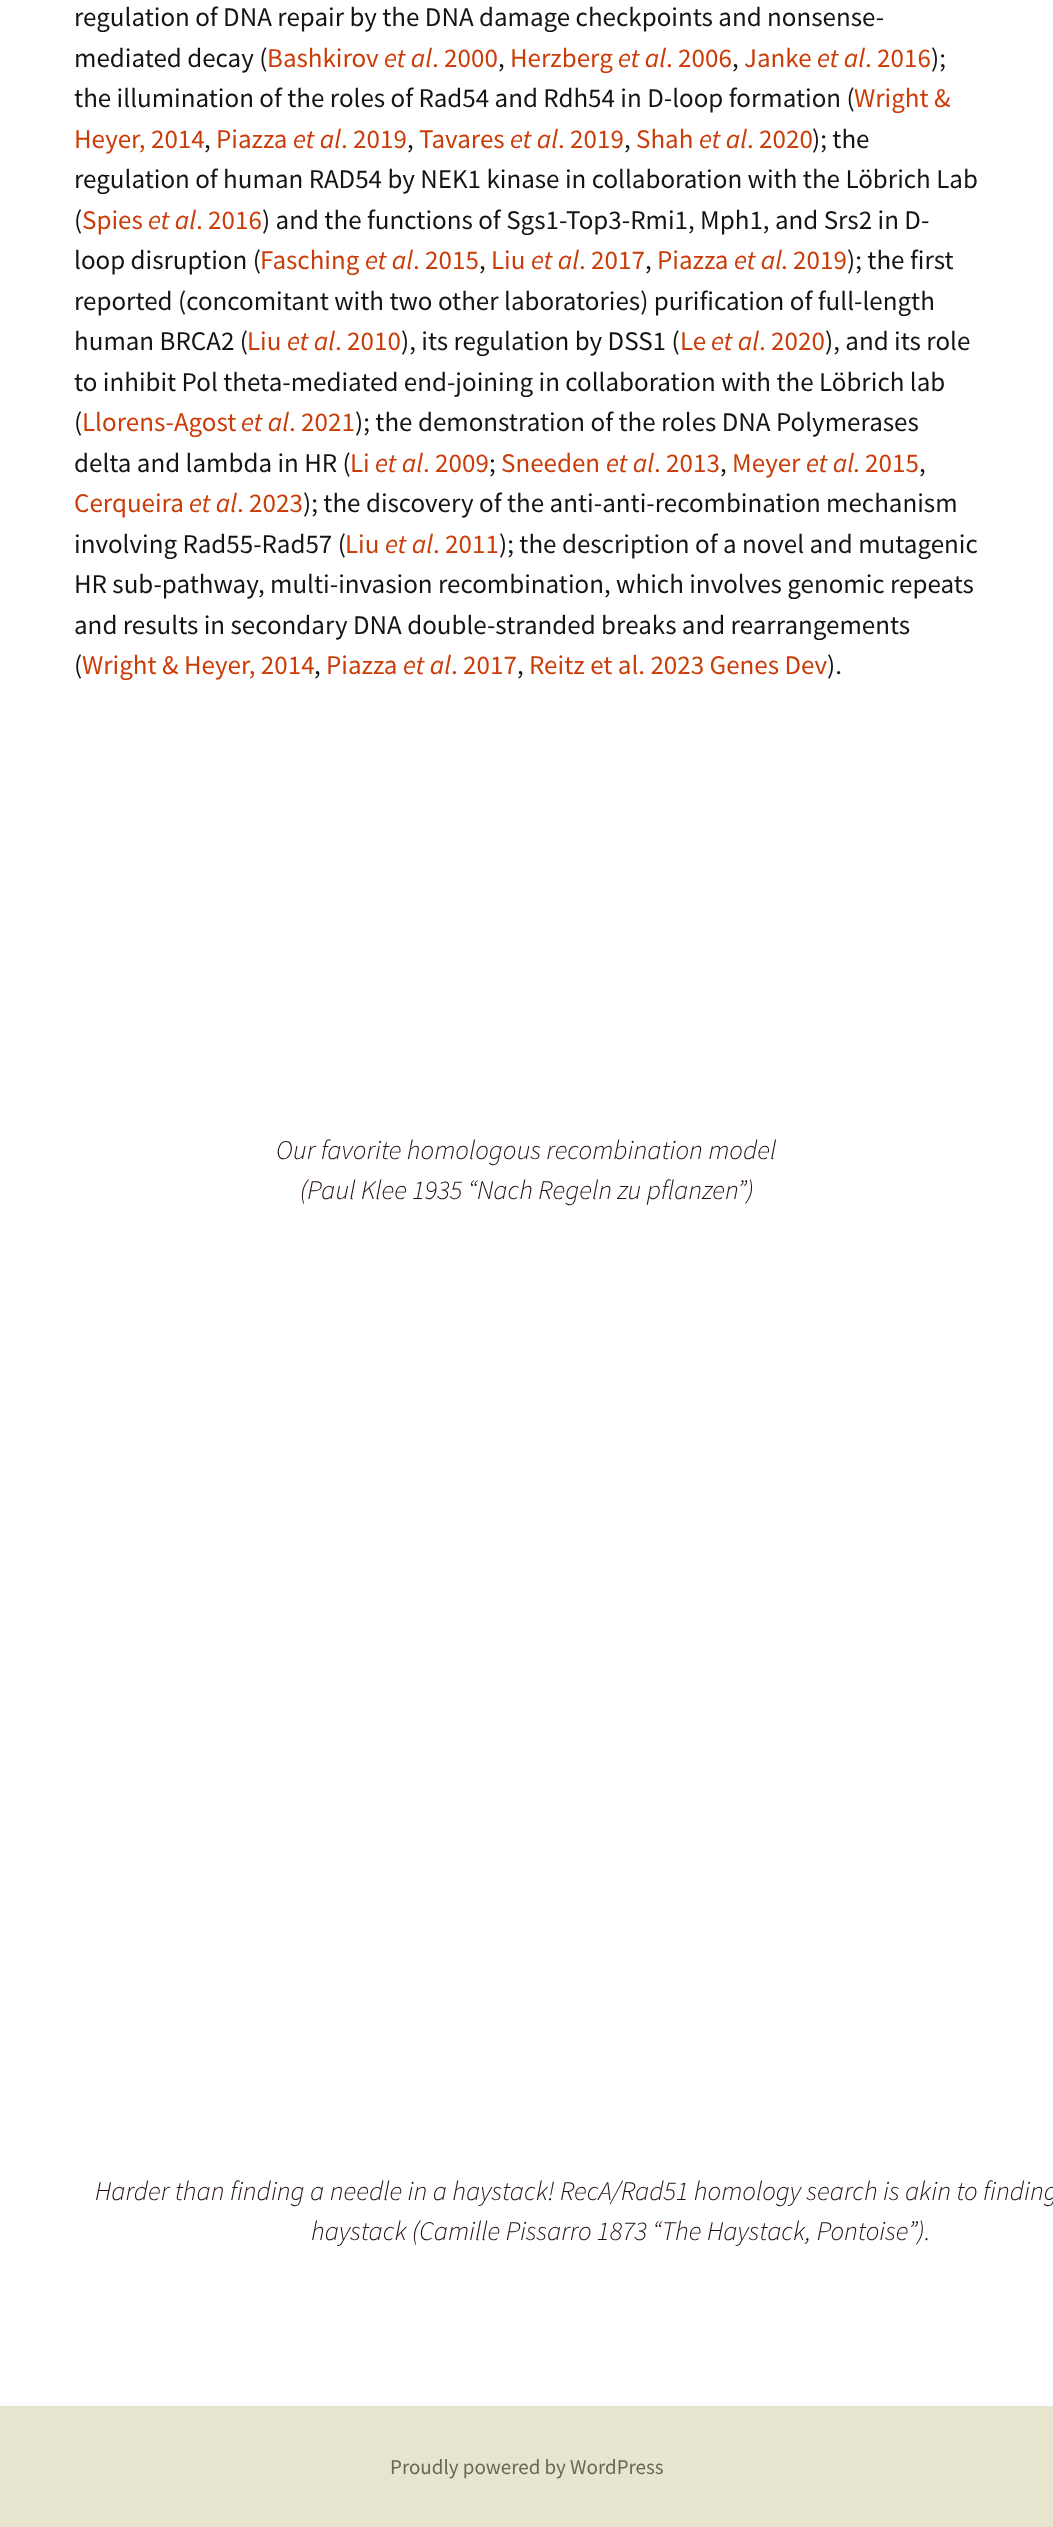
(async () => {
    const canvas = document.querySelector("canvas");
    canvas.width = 1053;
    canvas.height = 2527;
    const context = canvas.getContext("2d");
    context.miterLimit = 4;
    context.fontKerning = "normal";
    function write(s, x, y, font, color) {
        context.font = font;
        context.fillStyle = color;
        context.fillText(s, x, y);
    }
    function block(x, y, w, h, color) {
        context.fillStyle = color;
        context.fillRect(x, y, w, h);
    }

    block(0, 0, 1053, 2527, "rgb(255, 255, 255)");
    write("regulation of DNA repair by the DNA damage checkpoints and nonsense-", 74, 26, "27px Source Sans Pro", "rgb(20, 20, 18)");
    write("mediated decay (", 74, 67, "27px Source Sans Pro", "rgb(20, 20, 18)");
    write("Bashkirov", 267, 67, "27px Source Sans Pro", "rgb(202, 60, 8)");
    write("et al", 384, 67, "italic 27px Source Sans Pro", "rgb(202, 60, 8)");
    write(". 2000", 432, 67, "27px Source Sans Pro", "rgb(202, 60, 8)");
    write(",", 498, 67, "27px Source Sans Pro", "rgb(20, 20, 18)");
    write("Herzberg", 510, 67, "27px Source Sans Pro", "rgb(202, 60, 8)");
    write("et al", 618, 67, "italic 27px Source Sans Pro", "rgb(202, 60, 8)");
    write(". 2006", 666, 67, "27px Source Sans Pro", "rgb(202, 60, 8)");
    write(",", 732, 67, "27px Source Sans Pro", "rgb(20, 20, 18)");
    write("Janke", 744, 67, "27px Source Sans Pro", "rgb(202, 60, 8)");
    write("et al", 817, 67, "italic 27px Source Sans Pro", "rgb(202, 60, 8)");
    write(". 2016", 865, 67, "27px Source Sans Pro", "rgb(202, 60, 8)");
    write(");", 931, 67, "27px Source Sans Pro", "rgb(20, 20, 18)");
    write("the illumination of the roles of Rad54 and Rdh54 in D-loop formation (", 74, 107, "27px Source Sans Pro", "rgb(20, 20, 18)");
    write("Wright &", 854, 107, "27px Source Sans Pro", "rgb(202, 60, 8)");
    write("Heyer, 2014", 74, 148, "27px Source Sans Pro", "rgb(202, 60, 8)");
    write(",", 204, 148, "27px Source Sans Pro", "rgb(20, 20, 18)");
    write("Piazza", 216, 148, "27px Source Sans Pro", "rgb(202, 60, 8)");
    write("et al", 293, 148, "italic 27px Source Sans Pro", "rgb(202, 60, 8)");
    write(". 2019", 341, 148, "27px Source Sans Pro", "rgb(202, 60, 8)");
    write(",", 407, 148, "27px Source Sans Pro", "rgb(20, 20, 18)");
    write("Tavares", 419, 148, "27px Source Sans Pro", "rgb(202, 60, 8)");
    write("et al", 510, 148, "italic 27px Source Sans Pro", "rgb(202, 60, 8)");
    write(". 2019", 558, 148, "27px Source Sans Pro", "rgb(202, 60, 8)");
    write(",", 624, 148, "27px Source Sans Pro", "rgb(20, 20, 18)");
    write("Shah", 636, 148, "27px Source Sans Pro", "rgb(202, 60, 8)");
    write("et al", 699, 148, "italic 27px Source Sans Pro", "rgb(202, 60, 8)");
    write(". 2020", 747, 148, "27px Source Sans Pro", "rgb(202, 60, 8)");
    write("); the", 812, 148, "27px Source Sans Pro", "rgb(20, 20, 18)");
    write("regulation of human RAD54 by NEK1 kinase in collaboration with the Löbrich Lab", 74, 188, "27px Source Sans Pro", "rgb(20, 20, 18)");
    write("(", 74, 229, "27px Source Sans Pro", "rgb(20, 20, 18)");
    write("Spies", 82, 229, "27px Source Sans Pro", "rgb(202, 60, 8)");
    write("et al", 148, 229, "italic 27px Source Sans Pro", "rgb(202, 60, 8)");
    write(". 2016", 196, 229, "27px Source Sans Pro", "rgb(202, 60, 8)");
    write(") and the functions of Sgs1-Top3-Rmi1, Mph1, and Srs2 in D-", 262, 229, "27px Source Sans Pro", "rgb(20, 20, 18)");
    write("loop disruption (", 74, 269, "27px Source Sans Pro", "rgb(20, 20, 18)");
    write("Fasching", 260, 269, "27px Source Sans Pro", "rgb(202, 60, 8)");
    write("et al", 365, 269, "italic 27px Source Sans Pro", "rgb(202, 60, 8)");
    write(". 2015", 413, 269, "27px Source Sans Pro", "rgb(202, 60, 8)");
    write(",", 479, 269, "27px Source Sans Pro", "rgb(20, 20, 18)");
    write("Liu", 491, 269, "27px Source Sans Pro", "rgb(202, 60, 8)");
    write("et al", 531, 269, "italic 27px Source Sans Pro", "rgb(202, 60, 8)");
    write(". 2017", 579, 269, "27px Source Sans Pro", "rgb(202, 60, 8)");
    write(",", 645, 269, "27px Source Sans Pro", "rgb(20, 20, 18)");
    write("Piazza", 657, 269, "27px Source Sans Pro", "rgb(202, 60, 8)");
    write("et al", 734, 269, "italic 27px Source Sans Pro", "rgb(202, 60, 8)");
    write(". 2019", 781, 269, "27px Source Sans Pro", "rgb(202, 60, 8)");
    write("); the first", 847, 269, "27px Source Sans Pro", "rgb(20, 20, 18)");
    write("reported (concomitant with two other laboratories) purification of full-length", 74, 310, "27px Source Sans Pro", "rgb(20, 20, 18)");
    write("human BRCA2 (", 74, 350, "27px Source Sans Pro", "rgb(20, 20, 18)");
    write("Liu", 247, 350, "27px Source Sans Pro", "rgb(202, 60, 8)");
    write("et al", 287, 350, "italic 27px Source Sans Pro", "rgb(202, 60, 8)");
    write(". 2010", 335, 350, "27px Source Sans Pro", "rgb(202, 60, 8)");
    write("), its regulation by DSS1 (", 401, 350, "27px Source Sans Pro", "rgb(20, 20, 18)");
    write("Le", 680, 350, "27px Source Sans Pro", "rgb(202, 60, 8)");
    write("et al", 711, 350, "italic 27px Source Sans Pro", "rgb(202, 60, 8)");
    write(". 2020", 759, 350, "27px Source Sans Pro", "rgb(202, 60, 8)");
    write("), and its role", 825, 350, "27px Source Sans Pro", "rgb(20, 20, 18)");
    write("to inhibit Pol theta-mediated end-joining in collaboration with the Löbrich lab", 74, 391, "27px Source Sans Pro", "rgb(20, 20, 18)");
    write("(", 74, 431, "27px Source Sans Pro", "rgb(20, 20, 18)");
    write("Llorens-Agost", 82, 431, "27px Source Sans Pro", "rgb(202, 60, 8)");
    write("et al", 241, 431, "italic 27px Source Sans Pro", "rgb(202, 60, 8)");
    write(". 2021", 289, 431, "27px Source Sans Pro", "rgb(202, 60, 8)");
    write("); the demonstration of the roles DNA Polymerases", 355, 431, "27px Source Sans Pro", "rgb(20, 20, 18)");
    write("delta and lambda in HR (", 74, 472, "27px Source Sans Pro", "rgb(20, 20, 18)");
    write("Li", 350, 472, "27px Source Sans Pro", "rgb(202, 60, 8)");
    write("et al", 375, 472, "italic 27px Source Sans Pro", "rgb(202, 60, 8)");
    write(". 2009", 423, 472, "27px Source Sans Pro", "rgb(202, 60, 8)");
    write(";", 489, 472, "27px Source Sans Pro", "rgb(20, 20, 18)");
    write("Sneeden", 501, 472, "27px Source Sans Pro", "rgb(202, 60, 8)");
    write("et al", 606, 472, "italic 27px Source Sans Pro", "rgb(202, 60, 8)");
    write(". 2013", 654, 472, "27px Source Sans Pro", "rgb(202, 60, 8)");
    write(",", 720, 472, "27px Source Sans Pro", "rgb(20, 20, 18)");
    write("Meyer", 732, 472, "27px Source Sans Pro", "rgb(202, 60, 8)");
    write("et al", 806, 472, "italic 27px Source Sans Pro", "rgb(202, 60, 8)");
    write(". 2015", 853, 472, "27px Source Sans Pro", "rgb(202, 60, 8)");
    write(",", 919, 472, "27px Source Sans Pro", "rgb(20, 20, 18)");
    write("Cerqueira", 74, 512, "27px Source Sans Pro", "rgb(202, 60, 8)");
    write("et al", 189, 512, "italic 27px Source Sans Pro", "rgb(202, 60, 8)");
    write(". 2023", 237, 512, "27px Source Sans Pro", "rgb(202, 60, 8)");
    write("); the discovery of the anti-anti-recombination mechanism", 303, 512, "27px Source Sans Pro", "rgb(20, 20, 18)");
    write("involving Rad55-Rad57 (", 74, 553, "27px Source Sans Pro", "rgb(20, 20, 18)");
    write("Liu", 345, 553, "27px Source Sans Pro", "rgb(202, 60, 8)");
    write("et al", 385, 553, "italic 27px Source Sans Pro", "rgb(202, 60, 8)");
    write(". 2011", 433, 553, "27px Source Sans Pro", "rgb(202, 60, 8)");
    write("); the description of a novel and mutagenic", 499, 553, "27px Source Sans Pro", "rgb(20, 20, 18)");
    write("HR sub-pathway, multi-invasion recombination, which involves genomic repeats", 74, 593, "27px Source Sans Pro", "rgb(20, 20, 18)");
    write("and results in secondary DNA double-stranded breaks and rearrangements", 74, 634, "27px Source Sans Pro", "rgb(20, 20, 18)");
    write("(", 74, 674, "27px Source Sans Pro", "rgb(20, 20, 18)");
    write("Wright & Heyer, 2014", 82, 674, "27px Source Sans Pro", "rgb(202, 60, 8)");
    write(",", 314, 674, "27px Source Sans Pro", "rgb(20, 20, 18)");
    write("Piazza", 326, 674, "27px Source Sans Pro", "rgb(202, 60, 8)");
    write("et al", 403, 674, "italic 27px Source Sans Pro", "rgb(202, 60, 8)");
    write(". 2017", 451, 674, "27px Source Sans Pro", "rgb(202, 60, 8)");
    write(",", 517, 674, "27px Source Sans Pro", "rgb(20, 20, 18)");
    write("Reitz et al. 2023 Genes Dev", 529, 674, "27px Source Sans Pro", "rgb(202, 60, 8)");
    write(").", 827, 674, "27px Source Sans Pro", "rgb(20, 20, 18)");
    write("Our favorite homologous recombination model", 276, 1159, "italic 300 27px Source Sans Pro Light", "rgb(34, 14, 16)");
    write("(Paul Klee 1935 “Nach Regeln zu pflanzen”)", 300, 1199, "italic 300 27px Source Sans Pro Light", "rgb(34, 14, 16)");
    write("Harder than finding a needle in a haystack! RecA/Rad51 homology search is akin to finding", 95, 2200, "italic 300 27px Source Sans Pro Light", "rgb(34, 14, 16)");
    write("haystack (Camille Pissarro 1873 “The Haystack, Pontoise”).", 311, 2240, "italic 300 27px Source Sans Pro Light", "rgb(34, 14, 16)");
    block(0, 2406, 1053, 121, "rgb(232, 229, 206)");
    write("Proudly powered by WordPress", 390, 2474, "21px Source Sans Pro", "rgb(104, 103, 88)");
})();
